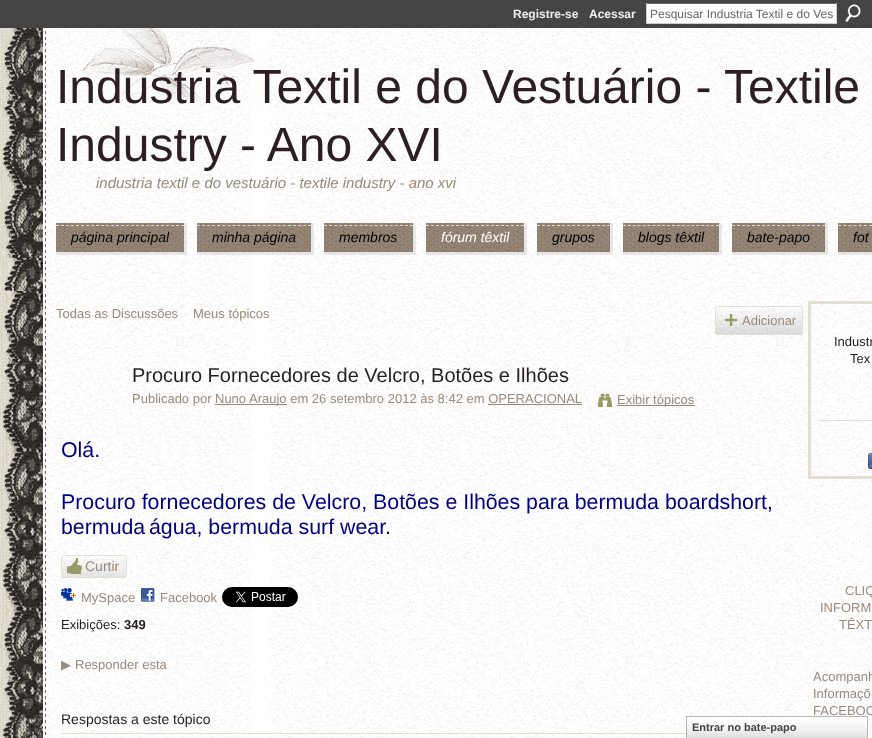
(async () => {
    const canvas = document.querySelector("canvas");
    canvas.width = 872;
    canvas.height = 738;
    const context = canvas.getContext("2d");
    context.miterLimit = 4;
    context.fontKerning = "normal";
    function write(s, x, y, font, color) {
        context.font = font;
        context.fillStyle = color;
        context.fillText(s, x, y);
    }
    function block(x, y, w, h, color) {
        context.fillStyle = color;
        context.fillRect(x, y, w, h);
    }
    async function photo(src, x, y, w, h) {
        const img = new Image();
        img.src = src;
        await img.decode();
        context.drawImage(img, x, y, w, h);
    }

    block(0, 0, 872, 738, "rgb(255, 255, 255)");
    await photo("media/1.png", 0, 28, 43, 710);
    block(0, 0, 872, 28, "rgb(68, 68, 68)");
    write("Registre-se", 513, 18, "bold 12px Liberation Sans", "rgb(238, 238, 238)");
    write("Acessar", 589, 18, "bold 12px Liberation Sans", "rgb(238, 238, 238)");
    block(647, 4, 189, 19, "rgb(255, 255, 255)");
    block(646, 3, 191, 1, "rgb(102, 102, 102)");
    block(836, 3, 1, 21, "rgb(204, 204, 204)");
    block(646, 23, 191, 1, "rgb(204, 204, 204)");
    block(646, 3, 1, 21, "rgb(204, 204, 204)");
    write("Pesquisar Industria Textil e do Ves", 650, 18, "12px Liberation Sans", "rgb(102, 102, 102)");
    await photo("media/2.png", 845, 4, 16, 18);
    await photo("media/3.png", 2, 28, 870, 230);
    await photo("media/4.png", 47, 28, 226, 104);
    write("Industria Textil e do Vestuário - Textile", 56, 103, "48px Liberation Sans", "rgb(44, 30, 36)");
    write("Industry - Ano XVI", 56, 161, "48px Liberation Sans", "rgb(44, 30, 36)");
    write("industria textil e do vestuário - textile industry - ano xvi", 96, 188, "italic 15px Liberation Sans", "rgb(154, 138, 124)");
    await photo("media/5.png", 56, 223, 131, 32);
    await photo("media/6.png", 56, 223, 128, 29);
    context.beginPath();
    context.moveTo(56, 225.5);
    context.lineTo(184, 225.5);
    context.strokeStyle = "rgb(221, 216, 201)";
    context.setLineDash([3, 2]);
    context.stroke();
    write("página principal", 71, 242, "italic 14px Liberation Sans", "rgb(0, 0, 0)");
    await photo("media/7.png", 197, 223, 117, 32);
    await photo("media/8.png", 197, 223, 114, 29);
    context.beginPath();
    context.moveTo(197, 225.5);
    context.lineTo(311, 225.5);
    context.setLineDash([3, 2.05]);
    context.stroke();
    write("minha página", 212, 242, "italic 14px Liberation Sans", "rgb(0, 0, 0)");
    await photo("media/9.png", 324, 223, 92, 32);
    await photo("media/10.png", 324, 223, 89, 29);
    context.beginPath();
    context.moveTo(324, 225.5);
    context.lineTo(413, 225.5);
    context.setLineDash([3, 2.06]);
    context.stroke();
    write("membros", 339, 242, "italic 14px Liberation Sans", "rgb(0, 0, 0)");
    await photo("media/11.png", 426, 223, 101, 32);
    await photo("media/12.png", 426, 223, 98, 29);
    context.beginPath();
    context.moveTo(426, 225.5);
    context.lineTo(524, 225.5);
    context.setLineDash([3, 2]);
    context.stroke();
    write("fórum têxtil", 441, 242, "italic 14px Liberation Sans", "rgb(255, 255, 255)");
    await photo("media/13.png", 537, 223, 76, 32);
    await photo("media/14.png", 537, 223, 73, 29);
    context.beginPath();
    context.moveTo(537, 225.5);
    context.lineTo(610, 225.5);
    context.stroke();
    write("grupos", 552, 242, "italic 14px Liberation Sans", "rgb(0, 0, 0)");
    await photo("media/15.png", 623, 223, 99, 32);
    await photo("media/16.png", 623, 223, 96, 29);
    context.beginPath();
    context.moveTo(623, 225.5);
    context.lineTo(719, 225.5);
    context.setLineDash([3, 1.89]);
    context.stroke();
    write("blogs têxtil", 638, 242, "italic 14px Liberation Sans", "rgb(0, 0, 0)");
    await photo("media/17.png", 732, 223, 96, 32);
    await photo("media/18.png", 732, 223, 93, 29);
    context.beginPath();
    context.moveTo(732, 225.5);
    context.lineTo(825, 225.5);
    context.setLineDash([3, 2]);
    context.stroke();
    write("bate-papo", 747, 242, "italic 14px Liberation Sans", "rgb(0, 0, 0)");
    block(838, 252, 34, 3, "rgba(177, 177, 177, 0.3)");
    await photo("media/19.png", 838, 223, 34, 29);
    context.beginPath();
    context.moveTo(838, 225.5);
    context.lineTo(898, 225.5);
    context.setLineDash([3, 2.18]);
    context.stroke();
    write("fot", 853, 242, "italic 14px Liberation Sans", "rgb(0, 0, 0)");
    await photo("media/20.png", 4, 258, 868, 33);
    await photo("media/21.png", 2, 291, 870, 447);
    write("Todas as Discussões", 56, 318, "13px Liberation Sans", "rgb(154, 138, 124)");
    write("Meus tópicos", 193, 318, "13px Liberation Sans", "rgb(154, 138, 124)");
    await photo("media/22.png", 715, 309, 88, 26);
    context.beginPath();
    context.roundRect(715.5, 306.5, 87, 28, 2.5);
    context.strokeStyle = "rgb(228, 222, 211)";
    context.setLineDash([]);
    context.stroke();
    await photo("media/23.png", 725, 314, 12, 12);
    write("Adicionar", 742, 325, "13px Liberation Sans", "rgb(154, 138, 124)");
    write("Procuro Fornecedores de Velcro, Botões e Ilhões", 132, 382, "20px Liberation Sans", "rgb(36, 30, 30)");
    write("Publicado por", 132, 403, "13px Liberation Sans", "rgb(154, 138, 124)");
    block(215, 404, 72, 1, "rgb(153, 138, 124)");
    write("Nuno Araujo em 26 setembro 2012 às 8:42 em OPERACIONAL", 215, 403, "13px Liberation Sans", "rgb(154, 138, 124)");
    block(488, 404, 94, 1, "rgb(153, 138, 124)");
    await photo("media/24.png", 598, 393, 14, 14);
    block(617, 405, 78, 1, "rgb(153, 138, 124)");
    write("Exibir tópicos", 617, 404, "13px Liberation Sans", "rgb(154, 138, 124)");
    write("Olá.", 61, 457, "21.35px Liberation Sans", "rgb(0, 0, 128)");
    write("Procuro fornecedores de Velcro, Botões e Ilhões para bermuda boardshort,", 61, 509, "21.35px Liberation Sans", "rgb(0, 0, 128)");
    write("bermuda", 61, 534, "21.35px Liberation Sans", "rgb(0, 0, 128)");
    write("água, bermuda surf wear.", 149, 534, "21.35px Liberation Sans", "rgb(0, 0, 128)");
    await photo("media/25.png", 61, 558, 66, 20);
    context.beginPath();
    context.roundRect(61.5, 555.5, 65, 22, 2.5);
    context.stroke();
    await photo("media/26.png", 67, 558, 15, 16);
    write("Curtir", 85, 571, "14px Liberation Sans", "rgb(154, 138, 124)");
    await photo("media/27.png", 61, 588, 15, 13);
    write("MySpace", 81, 602, "13px Liberation Sans", "rgb(154, 138, 124)");
    await photo("media/28.png", 141, 588, 14, 14);
    write("Facebook", 160, 602, "13px Liberation Sans", "rgb(154, 138, 124)");
    await photo("media/29.png", 222, 587, 76, 20);
    write("Exibições:", 61, 629, "13px Liberation Sans", "rgb(36, 30, 30)");
    write("349", 124, 629, "bold 13px Liberation Sans", "rgb(36, 30, 30)");
    write("▶", 61, 669, "13px DejaVu Sans", "rgb(154, 138, 124)");
    write("Responder esta", 75, 669, "13px Liberation Sans", "rgb(154, 138, 124)");
    write("Respostas a este tópico", 61, 724, "14px Liberation Sans", "rgb(36, 30, 30)");
    block(61, 733, 625, 1, "rgb(228, 222, 211)");
    context.lineWidth = 3;
    context.strokeRect(809.5, 302.5, 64, 175);
    write("Industr", 834, 346, "13px Liberation Sans", "rgb(36, 30, 30)");
    write("Tex", 850, 363, "13px Liberation Sans", "rgb(36, 30, 30)");
    block(819, 420, 53, 1, "rgb(228, 222, 211)");
    await photo("media/30.png", 868, 453, 4, 16);
    write("CLIQ", 845, 595, "13px Liberation Sans", "rgb(154, 138, 124)");
    write("INFORM", 820, 612, "13px Liberation Sans", "rgb(154, 138, 124)");
    write("TÊXT", 839, 629, "13px Liberation Sans", "rgb(154, 138, 124)");
    write("Acompanh", 813, 681, "13px Liberation Sans", "rgb(154, 138, 124)");
    write("Informaçõ", 813, 698, "13px Liberation Sans", "rgb(154, 138, 124)");
    write("FACEBOO", 813, 715, "13px Liberation Sans", "rgb(154, 138, 124)");
    await photo("media/31.png", 687, 717, 180, 21);
    context.strokeStyle = "rgb(183, 183, 183)";
    context.lineWidth = 1;
    context.strokeRect(686.5, 716.5, 181, 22);
    write("Entrar no bate-papo", 692, 731, "bold 11px Liberation Sans", "rgb(69, 69, 69)");
})();
